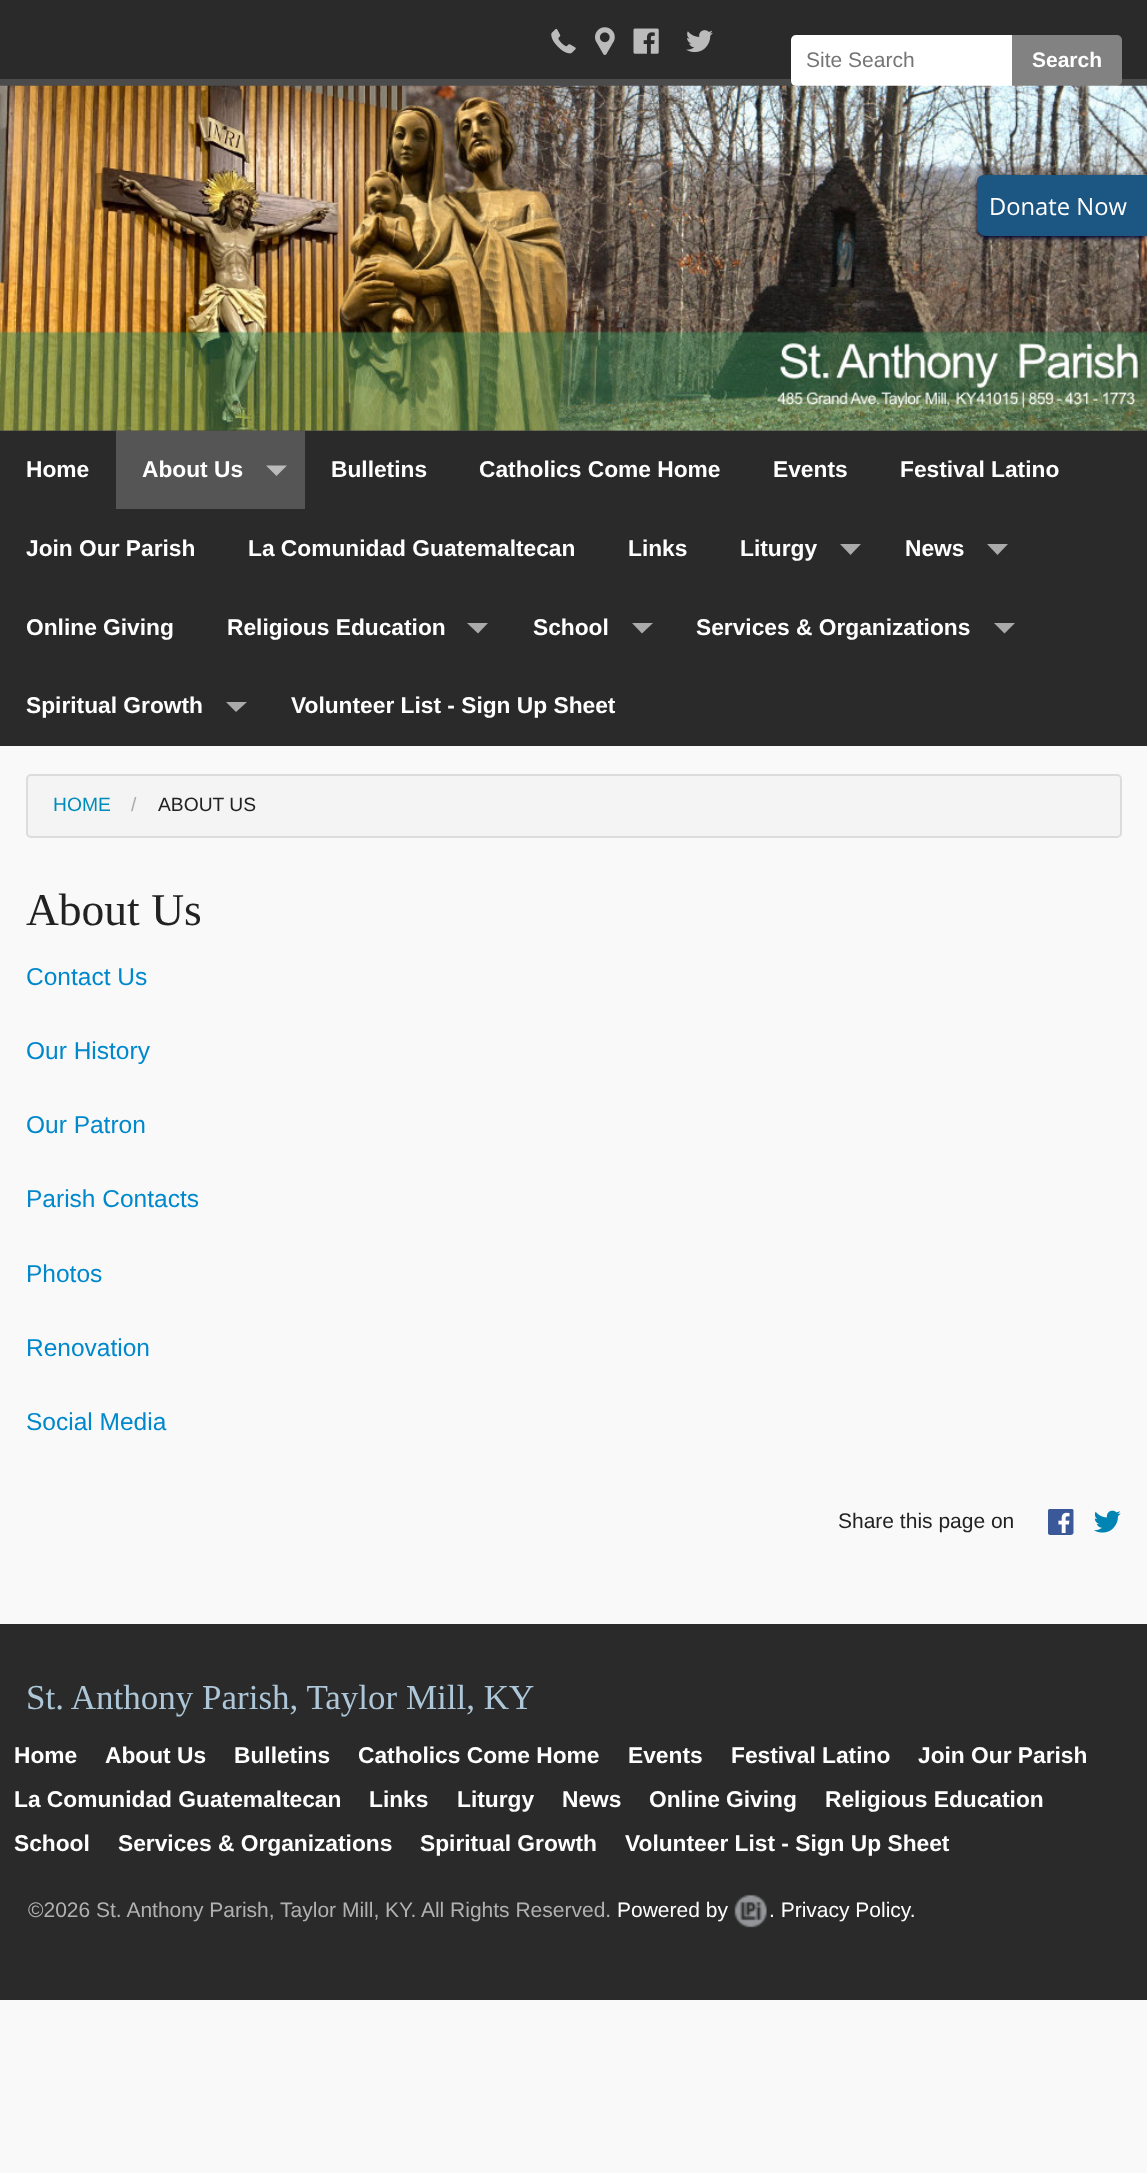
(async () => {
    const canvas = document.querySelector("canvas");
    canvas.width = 1147;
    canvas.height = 2173;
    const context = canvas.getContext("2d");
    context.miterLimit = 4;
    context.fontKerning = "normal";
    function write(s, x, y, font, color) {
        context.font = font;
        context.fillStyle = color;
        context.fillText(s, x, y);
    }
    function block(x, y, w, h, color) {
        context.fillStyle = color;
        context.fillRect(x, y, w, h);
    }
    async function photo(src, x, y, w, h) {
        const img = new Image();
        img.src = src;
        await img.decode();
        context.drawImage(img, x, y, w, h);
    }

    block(0, 0, 1147, 2173, "rgb(249, 249, 249)");
    block(0, 79, 1147, 352, "rgb(75, 75, 75)");
    block(0, 0, 1147, 79, "rgb(42, 42, 42)");
    await photo("media/1.png", 551, 28, 25, 26);
    await photo("media/2.png", 595, 27, 20, 28);
    await photo("media/3.png", 633, 28, 26, 26);
    await photo("media/4.png", 686, 30, 27, 23);
    context.fillStyle = "rgb(255, 255, 255)";
    context.beginPath();
    context.roundRect(791, 35, 221, 51, [5, 0, 0, 5]);
    context.fill();
    write("Site Search", 806, 67, "21px Liberation Sans", "rgb(117, 117, 117)");
    context.fillStyle = "rgb(130, 130, 130)";
    context.beginPath();
    context.roundRect(1012, 35, 110, 51, [0, 5, 5, 0]);
    context.fill();
    write("Search", 1032, 67, "bold 21px Liberation Sans", "rgb(255, 255, 255)");
    await photo("media/5.png", 0, 85, 1147, 346);
    block(0, 431, 1147, 315, "rgb(42, 42, 42)");
    write("Home", 26, 477, "bold 22.75px Liberation Sans", "rgb(255, 255, 255)");
    block(116, 431, 189, 78, "rgb(85, 85, 85)");
    write("About Us", 142, 477, "bold 22.75px Liberation Sans", "rgb(255, 255, 255)");
    context.fillStyle = "rgb(187, 187, 187)";
    context.beginPath();
    context.moveTo(266, 465.5);
    context.lineTo(287, 465.5);
    context.lineTo(276.5, 476);
    context.closePath();
    context.fill();
    write("Bulletins", 331, 477, "bold 22.75px Liberation Sans", "rgb(255, 255, 255)");
    write("Catholics Come Home", 479, 477, "bold 22.75px Liberation Sans", "rgb(255, 255, 255)");
    write("Events", 773, 477, "bold 22.75px Liberation Sans", "rgb(255, 255, 255)");
    write("Festival Latino", 900, 477, "bold 22.75px Liberation Sans", "rgb(255, 255, 255)");
    write("Join Our Parish", 26, 556, "bold 22.75px Liberation Sans", "rgb(255, 255, 255)");
    write("La Comunidad Guatemaltecan", 248, 556, "bold 22.75px Liberation Sans", "rgb(255, 255, 255)");
    write("Links", 628, 556, "bold 22.75px Liberation Sans", "rgb(255, 255, 255)");
    write("Liturgy", 740, 556, "bold 22.75px Liberation Sans", "rgb(255, 255, 255)");
    context.fillStyle = "rgb(170, 170, 170)";
    context.beginPath();
    context.moveTo(840, 544);
    context.lineTo(861, 544);
    context.lineTo(850.5, 555);
    context.closePath();
    context.fill();
    write("News", 905, 556, "bold 22.75px Liberation Sans", "rgb(255, 255, 255)");
    context.fillStyle = "rgb(170, 170, 170)";
    context.beginPath();
    context.moveTo(987, 544);
    context.lineTo(1008, 544);
    context.lineTo(997.5, 555);
    context.closePath();
    context.fill();
    write("Online Giving", 26, 635, "bold 22.75px Liberation Sans", "rgb(255, 255, 255)");
    write("Religious Education", 227, 635, "bold 22.75px Liberation Sans", "rgb(255, 255, 255)");
    context.fillStyle = "rgb(170, 170, 170)";
    context.beginPath();
    context.moveTo(467, 623);
    context.lineTo(488, 623);
    context.lineTo(478, 633.5);
    context.closePath();
    context.fill();
    write("School", 533, 635, "bold 22.75px Liberation Sans", "rgb(255, 255, 255)");
    context.fillStyle = "rgb(170, 170, 170)";
    context.beginPath();
    context.moveTo(632, 623);
    context.lineTo(653, 623);
    context.lineTo(642, 633.5);
    context.closePath();
    context.fill();
    write("Services & Organizations", 696, 635, "bold 22.75px Liberation Sans", "rgb(255, 255, 255)");
    context.fillStyle = "rgb(170, 170, 170)";
    context.beginPath();
    context.moveTo(994, 623);
    context.lineTo(1015, 623);
    context.lineTo(1004.5, 633.5);
    context.closePath();
    context.fill();
    write("Spiritual Growth", 26, 713, "bold 22.75px Liberation Sans", "rgb(255, 255, 255)");
    context.fillStyle = "rgb(170, 170, 170)";
    context.beginPath();
    context.moveTo(226, 702);
    context.lineTo(247, 702);
    context.lineTo(236, 712);
    context.closePath();
    context.fill();
    write("Volunteer List - Sign Up Sheet", 291, 713, "bold 22.75px Liberation Sans", "rgb(255, 255, 255)");
    context.fillStyle = "rgb(0, 0, 41)";
    context.filter = "blur(2px)";
    context.beginPath();
    context.roundRect(977, 177, 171, 61, 9);
    context.fill();
    context.filter = "none";
    context.fillStyle = "rgb(28, 86, 130)";
    context.beginPath();
    context.moveTo(984, 175);
    context.lineTo(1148, 175);
    context.lineTo(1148, 236);
    context.lineTo(986, 236);
    context.bezierCurveTo(981, 236, 977, 232, 977, 227);
    context.lineTo(977, 182);
    context.bezierCurveTo(977, 178, 980, 175, 984, 175);
    context.closePath();
    context.fill();
    write("Donate Now", 989, 215, "23.75px Open Sans", "rgb(255, 255, 255)");
    context.fillStyle = "rgb(244, 244, 244)";
    context.beginPath();
    context.roundRect(27, 775, 1094, 62, 4);
    context.fill();
    context.strokeStyle = "rgb(220, 220, 220)";
    context.lineWidth = 2;
    context.stroke();
    write("HOME", 53, 811, "19.25px Liberation Sans", "rgb(0, 140, 186)");
    write("/", 131, 811, "19.25px Liberation Sans", "rgb(170, 170, 170)");
    write("ABOUT US", 158, 811, "19.25px Liberation Sans", "rgb(34, 34, 34)");
    write("About Us", 26, 925, "45.5px Liberation Serif", "rgb(34, 34, 34)");
    write("Contact Us", 26, 985, "24.5px Liberation Sans", "rgb(0, 136, 204)");
    write("Our History", 26, 1059, "24.5px Liberation Sans", "rgb(0, 136, 204)");
    write("Our Patron", 26, 1133, "24.5px Liberation Sans", "rgb(0, 136, 204)");
    write("Parish Contacts", 26, 1207, "24.5px Liberation Sans", "rgb(0, 136, 204)");
    write("Photos", 26, 1282, "24.5px Liberation Sans", "rgb(0, 136, 204)");
    write("Renovation", 26, 1356, "24.5px Liberation Sans", "rgb(0, 136, 204)");
    write("Social Media", 26, 1430, "24.5px Liberation Sans", "rgb(0, 136, 204)");
    write("Share this page on", 838, 1528, "21px Liberation Sans", "rgb(34, 34, 34)");
    context.fillStyle = "rgb(255, 255, 255)";
    context.beginPath();
    context.roundRect(1049, 1510, 23, 24, 1.5);
    context.fill();
    context.strokeStyle = "rgb(59, 89, 152)";
    context.stroke();
    await photo("media/6.png", 1048, 1509, 26, 26);
    await photo("media/7.png", 1094, 1510, 27, 23);
    block(0, 1624, 1147, 376, "rgb(42, 42, 42)");
    write("St. Anthony Parish, Taylor Mill, KY", 26, 1709, "35px Liberation Serif", "rgb(173, 199, 217)");
    write("Home", 14, 1763, "bold 22.75px Liberation Sans", "rgb(255, 255, 255)");
    write("About Us", 105, 1763, "bold 22.75px Liberation Sans", "rgb(255, 255, 255)");
    write("Bulletins", 234, 1763, "bold 22.75px Liberation Sans", "rgb(255, 255, 255)");
    write("Catholics Come Home", 358, 1763, "bold 22.75px Liberation Sans", "rgb(255, 255, 255)");
    write("Events", 628, 1763, "bold 22.75px Liberation Sans", "rgb(255, 255, 255)");
    write("Festival Latino", 731, 1763, "bold 22.75px Liberation Sans", "rgb(255, 255, 255)");
    write("Join Our Parish", 918, 1763, "bold 22.75px Liberation Sans", "rgb(255, 255, 255)");
    write("La Comunidad Guatemaltecan", 14, 1807, "bold 22.75px Liberation Sans", "rgb(255, 255, 255)");
    write("Links", 369, 1807, "bold 22.75px Liberation Sans", "rgb(255, 255, 255)");
    write("Liturgy", 457, 1807, "bold 22.75px Liberation Sans", "rgb(255, 255, 255)");
    write("News", 562, 1807, "bold 22.75px Liberation Sans", "rgb(255, 255, 255)");
    write("Online Giving", 649, 1807, "bold 22.75px Liberation Sans", "rgb(255, 255, 255)");
    write("Religious Education", 825, 1807, "bold 22.75px Liberation Sans", "rgb(255, 255, 255)");
    write("School", 14, 1851, "bold 22.75px Liberation Sans", "rgb(255, 255, 255)");
    write("Services & Organizations", 118, 1851, "bold 22.75px Liberation Sans", "rgb(255, 255, 255)");
    write("Spiritual Growth", 420, 1851, "bold 22.75px Liberation Sans", "rgb(255, 255, 255)");
    write("Volunteer List - Sign Up Sheet", 625, 1851, "bold 22.75px Liberation Sans", "rgb(255, 255, 255)");
    write("©2026 St. Anthony Parish, Taylor Mill, KY. All Rights Reserved.", 28, 1917, "21px Liberation Sans", "rgb(177, 177, 177)");
    write("Powered by", 617, 1917, "21px Liberation Sans", "rgb(255, 255, 255)");
    await photo("media/8.png", 734, 1894, 33, 34);
    write(". Privacy Policy.", 769, 1917, "21px Liberation Sans", "rgb(255, 255, 255)");
})();
